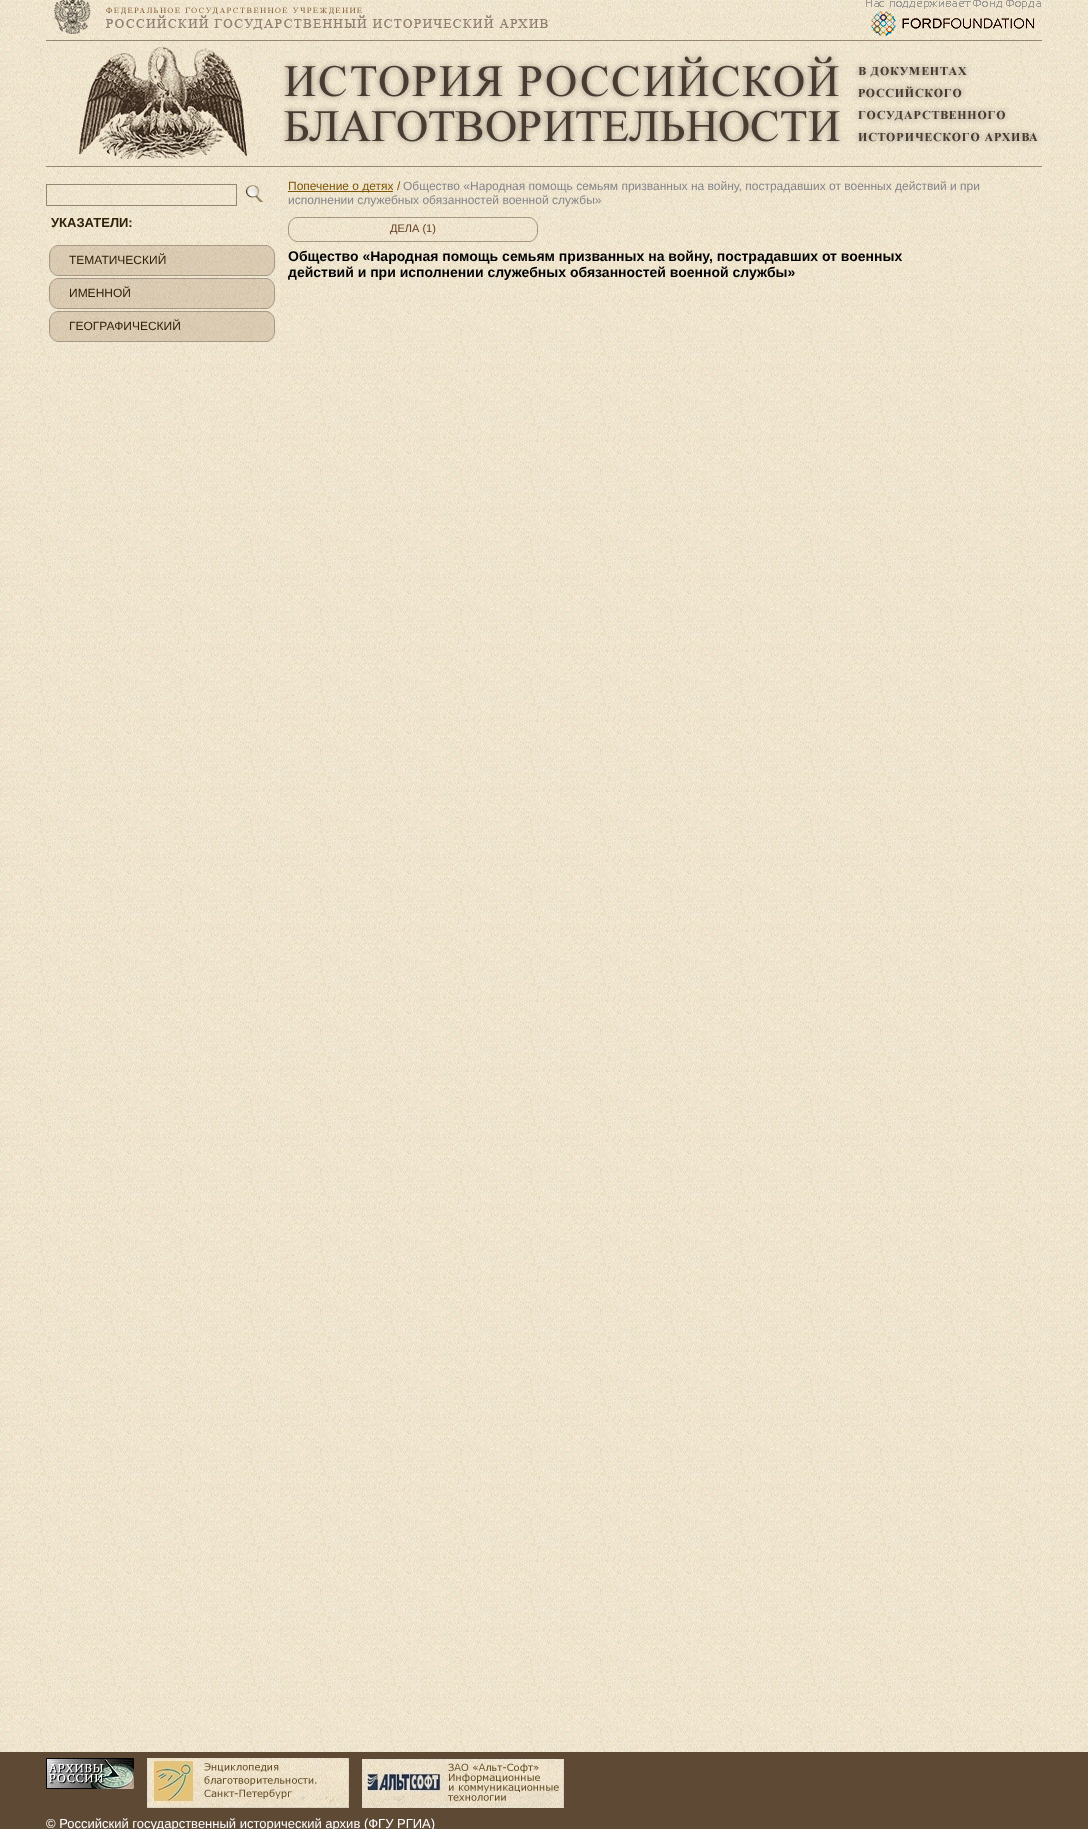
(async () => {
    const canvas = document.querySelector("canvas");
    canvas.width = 1088;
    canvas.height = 1829;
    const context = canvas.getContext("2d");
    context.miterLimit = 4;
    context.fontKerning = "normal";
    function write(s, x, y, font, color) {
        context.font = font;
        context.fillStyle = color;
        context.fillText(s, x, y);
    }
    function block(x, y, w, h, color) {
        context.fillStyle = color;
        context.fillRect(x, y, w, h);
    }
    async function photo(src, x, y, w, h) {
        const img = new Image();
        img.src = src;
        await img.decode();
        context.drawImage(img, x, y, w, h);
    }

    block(0, 0, 1088, 1829, "rgb(255, 255, 255)");
    await photo("media/1.png", 0, 0, 1088, 1752);
    await photo("media/2.png", 54, 0, 494, 34);
    await photo("media/3.png", 866, 0, 175, 36);
    await photo("media/4.png", 46, 40, 996, 127);
    context.strokeStyle = "rgb(147, 134, 115)";
    context.strokeRect(46.5, 184.5, 190, 21);
    await photo("media/5.png", 246, 185, 17, 17);
    write("УКАЗАТЕЛИ:", 51, 227, "bold 13px Liberation Sans", "rgb(48, 33, 10)");
    await photo("media/6.png", 49, 245, 226, 31);
    write("ТЕМАТИЧЕСКИЙ", 69, 264, "12px Liberation Sans", "rgb(48, 33, 10)");
    await photo("media/7.png", 49, 278, 226, 31);
    write("ИМЕННОЙ", 69, 297, "12px Liberation Sans", "rgb(48, 33, 10)");
    await photo("media/8.png", 49, 311, 226, 31);
    write("ГЕОГРАФИЧЕСКИЙ", 69, 330, "12px Liberation Sans", "rgb(48, 33, 10)");
    block(288, 191, 105, 1, "rgb(124, 86, 5)");
    write("Попечение о детях /", 288, 190, "12px Liberation Sans", "rgb(124, 86, 5)");
    write("Общество «Народная помощь семьям призванных на войну, пострадавших от военных действий и при", 403, 190, "12px Liberation Sans", "rgb(134, 133, 138)");
    write("исполнении служебных обязанностей военной службы»", 288, 204, "12px Liberation Sans", "rgb(134, 133, 138)");
    await photo("media/9.png", 288, 217, 250, 25);
    write("ДЕЛА (1)", 390, 232, "11px Liberation Sans", "rgb(95, 58, 29)");
    write("Общество «Народная помощь семьям призванных на войну, пострадавших от военных", 288, 261, "bold 14px Liberation Sans", "rgb(0, 0, 0)");
    write("действий и при исполнении служебных обязанностей военной службы»", 288, 277, "bold 14px Liberation Sans", "rgb(0, 0, 0)");
    block(0, 1752, 1088, 77, "rgb(94, 73, 52)");
    await photo("media/10.png", 46, 1758, 88, 31);
    await photo("media/11.png", 147, 1758, 202, 50);
    await photo("media/12.png", 362, 1759, 202, 49);
    write("© Российский государственный исторический архив (ФГУ РГИА)", 46, 1828, "13px Liberation Sans", "rgb(255, 255, 255)");
})();
